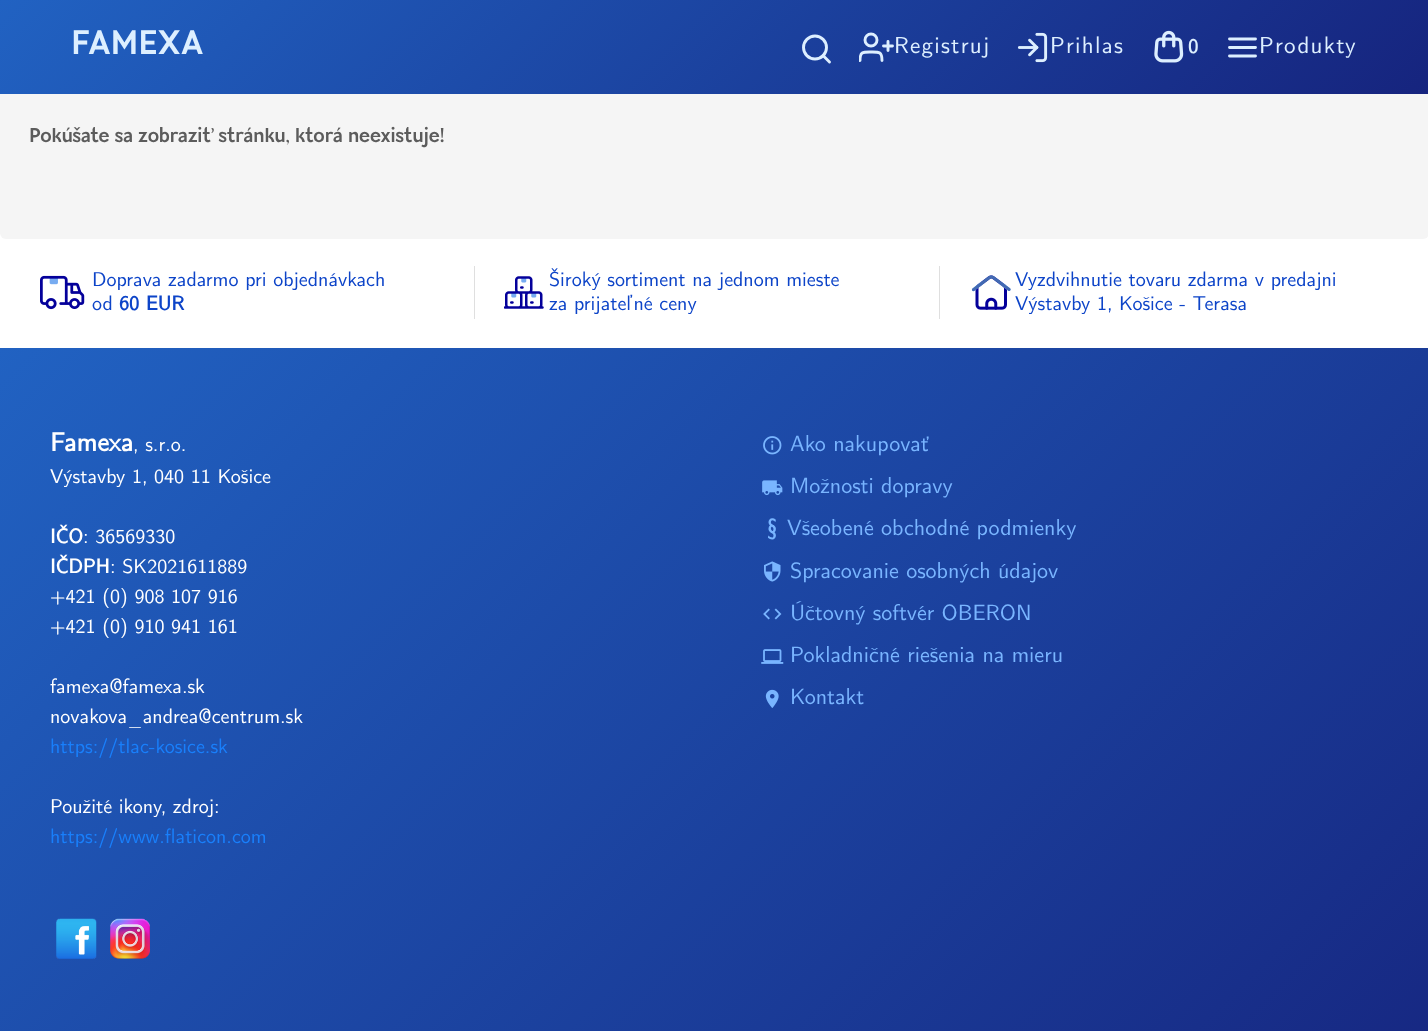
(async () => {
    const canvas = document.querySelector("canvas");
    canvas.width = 1428;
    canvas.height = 1031;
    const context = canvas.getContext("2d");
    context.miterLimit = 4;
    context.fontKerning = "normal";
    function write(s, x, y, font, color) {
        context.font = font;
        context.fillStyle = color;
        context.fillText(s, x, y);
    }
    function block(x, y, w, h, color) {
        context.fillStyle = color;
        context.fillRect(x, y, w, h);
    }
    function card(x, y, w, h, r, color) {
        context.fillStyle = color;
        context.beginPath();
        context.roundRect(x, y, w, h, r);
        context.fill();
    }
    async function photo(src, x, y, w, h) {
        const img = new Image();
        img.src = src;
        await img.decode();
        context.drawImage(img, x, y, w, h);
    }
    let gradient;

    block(0, 0, 1428, 1031, "rgb(255, 255, 255)");
    card(0, 0, 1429, 239, 6, "rgb(245, 245, 245)");
    gradient = context.createLinearGradient(334, -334, 1095, 428);
    gradient.addColorStop(0, "rgb(33, 98, 194)");
    gradient.addColorStop(1, "rgb(22, 36, 126)");
    context.fillStyle = gradient;
    context.fillRect(0, 0, 1428, 94);
    write("FAMEXA", 71, 54, "bold 34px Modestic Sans", "rgb(221, 239, 255)");
    context.beginPath();
    context.arc(815, 47.5, 11.5, 0, Math.PI * 2);
    context.strokeStyle = "rgb(221, 239, 255)";
    context.lineWidth = 2.9;
    context.stroke();
    context.letterSpacing = "1.25px";
    write("Registruj", 894, 53, "500 23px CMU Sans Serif", "rgb(221, 239, 255)");
    context.save();
    context.beginPath();
    context.rect(859, 30, 35, 35);
    context.clip();
    context.beginPath();
    context.moveTo(882, 60.5);
    context.bezierCurveTo(882, 51.5, 879, 52, 871, 52);
    context.bezierCurveTo(863, 52, 860, 51.5, 860, 60.5);
    context.lineCap = "round";
    context.lineJoin = "round";
    context.stroke();
    context.restore();
    context.beginPath();
    context.arc(871, 40, 6, 0, Math.PI * 2);
    context.stroke();
    context.beginPath();
    context.moveTo(888, 41.5);
    context.lineTo(888, 50.5);
    context.moveTo(892.5, 46);
    context.lineTo(883.5, 46);
    context.lineCap = "round";
    context.lineJoin = "round";
    context.stroke();
    await photo("media/1.png", 1017, 32, 31, 31);
    write("Prihlas", 1050, 53, "500 23px CMU Sans Serif", "rgb(221, 239, 255)");
    await photo("media/2.png", 1154, 30, 30, 33);
    write("0", 1188, 53, "bold 20px CMU Sans Serif", "rgb(221, 239, 255)");
    write("Produkty", 1259, 53, "500 23px CMU Sans Serif", "rgb(221, 239, 255)");
    context.beginPath();
    context.moveTo(1229.5, 47.5);
    context.lineTo(1255.5, 47.5);
    context.moveTo(1229.5, 39);
    context.lineTo(1255.5, 39);
    context.moveTo(1229.5, 56);
    context.lineTo(1255.5, 56);
    context.stroke();
    context.beginPath();
    context.moveTo(829.5, 62);
    context.lineTo(823, 55.5);
    context.stroke();
    context.letterSpacing = "0px";
    write("Pokúšate sa zobraziť stránku, ktorá neexistuje!", 29, 142, "bold 20px Modestic Sans", "rgb(92, 92, 92)");
    block(474, 266, 1, 53, "rgb(223, 223, 223)");
    await photo("media/3.png", 40, 275, 45, 35);
    write("Doprava zadarmo pri objednávkach", 92, 286, "500 20px CMU Sans Serif", "rgb(13, 68, 200)");
    write("od", 92, 310, "500 20px CMU Sans Serif", "rgb(13, 68, 200)");
    write("60 EUR", 119, 310, "bold 20px CMU Sans Serif", "rgb(13, 68, 200)");
    block(939, 266, 1, 53, "rgb(223, 223, 223)");
    await photo("media/4.png", 504, 276, 40, 33);
    write("Široký sortiment na jednom mieste", 549, 286, "500 20px CMU Sans Serif", "rgb(13, 68, 200)");
    write("za prijateľné ceny", 549, 310, "500 20px CMU Sans Serif", "rgb(13, 68, 200)");
    await photo("media/5.png", 971, 275, 40, 35);
    write("Vyzdvihnutie tovaru zdarma v predajni", 1015, 286, "500 20px CMU Sans Serif", "rgb(13, 68, 200)");
    write("Výstavby 1, Košice - Terasa", 1015, 310, "500 20px CMU Sans Serif", "rgb(13, 68, 200)");
    gradient = context.createLinearGradient(144, 203, 1285, 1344);
    gradient.addColorStop(0, "rgb(33, 98, 194)");
    gradient.addColorStop(1, "rgb(22, 36, 126)");
    context.fillStyle = gradient;
    context.fillRect(0, 348, 1428, 683);
    write("Famexa", 50, 451, "bold 26px CMU Sans Serif", "rgb(255, 255, 255)");
    write(", s.r.o.", 133, 451, "500 20px CMU Sans Serif", "rgb(255, 255, 255)");
    write("Výstavby 1, 040 11 Košice", 50, 483, "500 20px CMU Sans Serif", "rgb(255, 255, 255)");
    write("IČO", 50, 543, "bold 20px CMU Sans Serif", "rgb(255, 255, 255)");
    write(": 36569330", 83, 543, "500 20px CMU Sans Serif", "rgb(255, 255, 255)");
    write("IČDPH", 50, 573, "bold 20px CMU Sans Serif", "rgb(255, 255, 255)");
    write(": SK2021611889", 110, 573, "500 20px CMU Sans Serif", "rgb(255, 255, 255)");
    write("+421 (0) 908 107 916", 50, 603, "500 20px CMU Sans Serif", "rgb(255, 255, 255)");
    write("+421 (0) 910 941 161", 50, 633, "500 20px CMU Sans Serif", "rgb(255, 255, 255)");
    write("famexa@famexa.sk", 50, 693, "500 20px CMU Sans Serif", "rgb(255, 255, 255)");
    write("novakova_andrea@centrum.sk", 50, 723, "500 20px CMU Sans Serif", "rgb(255, 255, 255)");
    write("https://tlac-kosice.sk", 50, 753, "500 20px CMU Sans Serif", "rgb(25, 127, 251)");
    write("Použité ikony, zdroj:", 50, 813, "500 20px CMU Sans Serif", "rgb(255, 255, 255)");
    write("https://www.flaticon.com", 50, 843, "500 20px CMU Sans Serif", "rgb(25, 127, 251)");
    await photo("media/6.png", 763, 436, 19, 19);
    write("Ako nakupovať", 790, 451, "500 22px CMU Sans Serif", "rgb(121, 181, 255)");
    await photo("media/7.png", 762, 480, 21, 16);
    write("Možnosti dopravy", 790, 493, "500 22px CMU Sans Serif", "rgb(121, 181, 255)");
    write("§", 767, 535, "bold 22px CMU Sans Serif", "rgb(121, 181, 255)");
    write("Všeobené obchodné podmienky", 787, 535, "500 22px CMU Sans Serif", "rgb(121, 181, 255)");
    await photo("media/8.png", 764, 561, 17, 21);
    write("Spracovanie osobných údajov", 790, 578, "500 22px CMU Sans Serif", "rgb(121, 181, 255)");
    await photo("media/9.png", 763, 608, 19, 12);
    write("Účtovný softvér OBERON", 790, 620, "500 22px CMU Sans Serif", "rgb(121, 181, 255)");
    await photo("media/10.png", 761, 649, 23, 15);
    write("Pokladničné riešenia na mieru", 790, 662, "500 22px CMU Sans Serif", "rgb(121, 181, 255)");
    await photo("media/11.png", 765, 689, 14, 19);
    write("Kontakt", 790, 704, "500 22px CMU Sans Serif", "rgb(121, 181, 255)");
    await photo("media/12.png", 56, 918, 41, 41);
    await photo("media/13.png", 110, 918, 40, 41);
})();
